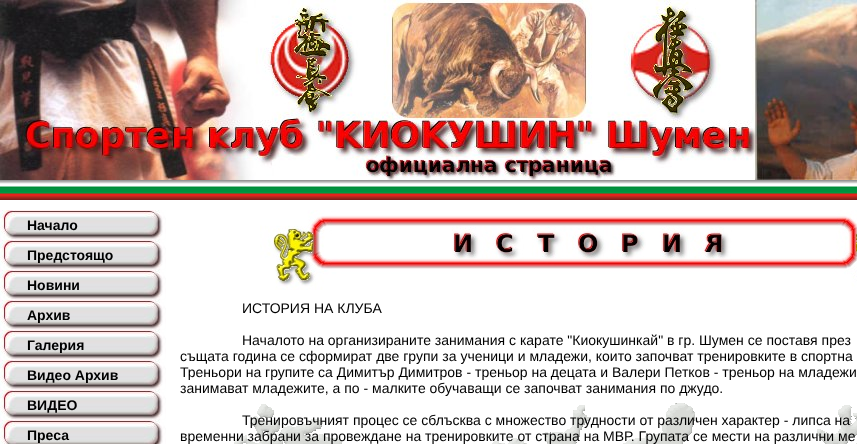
(async () => {
    const canvas = document.querySelector("canvas");
    canvas.width = 857;
    canvas.height = 444;
    const context = canvas.getContext("2d");
    context.miterLimit = 4;
    context.fontKerning = "normal";
    function write(s, x, y, font, color) {
        context.font = font;
        context.fillStyle = color;
        context.fillText(s, x, y);
    }
    function block(x, y, w, h, color) {
        context.fillStyle = color;
        context.fillRect(x, y, w, h);
    }
    async function photo(src, x, y, w, h) {
        const img = new Image();
        img.src = src;
        await img.decode();
        context.drawImage(img, x, y, w, h);
    }

    block(0, 0, 857, 444, "rgb(255, 255, 255)");
    await photo("media/1.png", 0, 0, 857, 180);
    await photo("media/2.png", 0, 180, 857, 20);
    await photo("media/3.png", 0, 210, 166, 30);
    write("Начало", 27, 230, "bold 14px Liberation Sans", "rgb(0, 0, 0)");
    await photo("media/3.png", 0, 240, 166, 30);
    write("Предстоящо", 27, 260, "bold 14px Liberation Sans", "rgb(0, 0, 0)");
    await photo("media/3.png", 0, 270, 166, 30);
    write("Новини", 27, 290, "bold 14px Liberation Sans", "rgb(0, 0, 0)");
    await photo("media/3.png", 0, 300, 166, 30);
    write("Архив", 27, 320, "bold 14px Liberation Sans", "rgb(0, 0, 0)");
    await photo("media/3.png", 0, 330, 166, 30);
    write("Галерия", 27, 350, "bold 14px Liberation Sans", "rgb(0, 0, 0)");
    await photo("media/3.png", 0, 360, 166, 30);
    write("Видео Архив", 27, 380, "bold 14px Liberation Sans", "rgb(0, 0, 0)");
    await photo("media/3.png", 0, 390, 166, 30);
    write("ВИДЕО", 27, 410, "bold 14px Liberation Sans", "rgb(0, 0, 0)");
    await photo("media/4.png", 0, 420, 166, 24);
    write("Преса", 27, 440, "bold 14px Liberation Sans", "rgb(0, 0, 0)");
    await photo("media/5.png", 260, 210, 597, 80);
    await photo("media/6.png", 234, 403, 623, 41);
    write("ИСТОРИЯ НА КЛУБА", 242, 313, "14px Liberation Sans", "rgb(0, 0, 0)");
    write("Началото на организираните занимания с карате \"Киокушинкай\" в гр. Шумен се поставя през", 242, 345, "14px Liberation Sans", "rgb(0, 0, 0)");
    write("същата година се сформират две групи за ученици и младежи, които започват тренировките в спортна", 180, 361, "14px Liberation Sans", "rgb(0, 0, 0)");
    write("Треньори на групите са Димитър Димитров - треньор на децата и Валери Петков - треньор на младежи", 180, 377, "14px Liberation Sans", "rgb(0, 0, 0)");
    write("занимават младежите, а по - малките обучаващи се започват занимания по джудо.", 180, 393, "14px Liberation Sans", "rgb(0, 0, 0)");
    write("Тренировъчният процес се сблъсква с множество трудности от различен характер - липса на", 242, 425, "14px Liberation Sans", "rgb(0, 0, 0)");
    write("временни забрани за провеждане на тренировките от страна на МВР. Групата се мести на различни ме", 180, 441, "14px Liberation Sans", "rgb(0, 0, 0)");
})();
